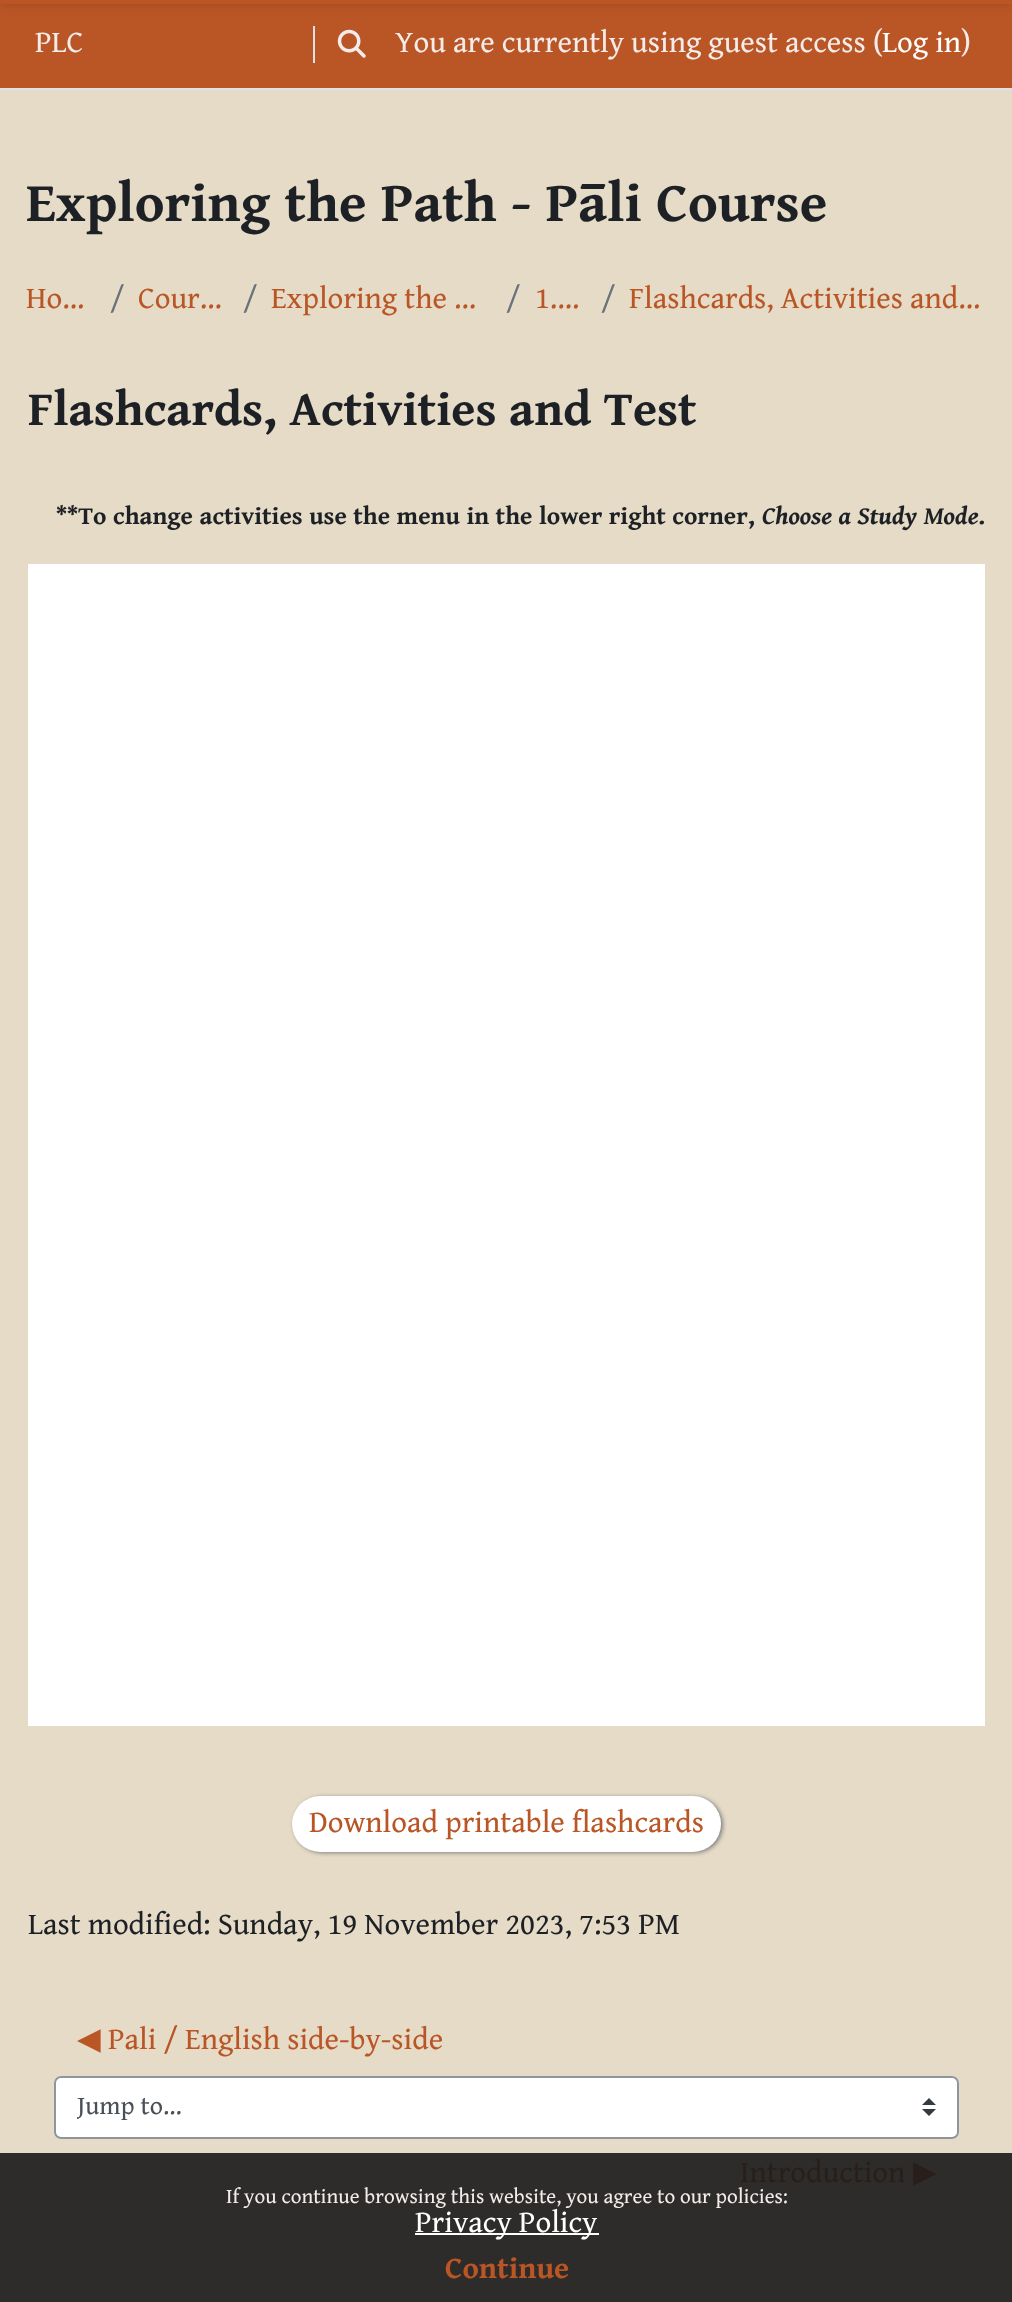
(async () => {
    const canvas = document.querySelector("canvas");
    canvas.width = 1012;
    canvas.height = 2302;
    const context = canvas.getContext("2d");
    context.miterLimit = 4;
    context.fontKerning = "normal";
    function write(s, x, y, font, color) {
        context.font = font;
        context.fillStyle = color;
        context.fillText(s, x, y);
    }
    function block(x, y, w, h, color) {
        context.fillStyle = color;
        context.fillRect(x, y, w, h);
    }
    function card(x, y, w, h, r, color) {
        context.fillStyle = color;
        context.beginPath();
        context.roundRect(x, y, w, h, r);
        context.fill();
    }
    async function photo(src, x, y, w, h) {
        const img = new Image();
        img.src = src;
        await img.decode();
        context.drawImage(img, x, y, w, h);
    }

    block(0, 0, 1012, 2302, "rgb(229, 219, 199)");
    block(0, 2153, 1012, 149, "rgb(45, 44, 42)");
    block(0, 4, 1012, 84, "rgb(186, 86, 38)");
    context.fillStyle = "rgba(0, 0, 0, 0.08)";
    context.filter = "blur(3.5px)";
    context.beginPath();
    context.rect(0, -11, 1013, 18);
    context.fill();
    context.filter = "none";
    block(0, 0, 1012, 4, "rgb(186, 86, 38)");
    block(0, 88, 1012, 2, "rgb(222, 226, 230)");
    write("PLC", 35, 52, "30.8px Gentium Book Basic", "rgb(243, 236, 234)");
    block(313, 26, 2, 37, "rgb(222, 226, 230)");
    await photo("media/1.png", 337, 29, 29, 29);
    write("You are currently using guest access (", 395, 52, "30.8px Gentium Book Basic", "rgb(243, 236, 234)");
    write("Log in", 882, 52, "30.8px Gentium Book Basic", "rgb(255, 255, 255)");
    write(")", 961, 52, "30.8px Gentium Book Basic", "rgb(243, 236, 234)");
    write("Exploring the Path - Pāli Course", 26, 221, "bold 56px Gentium Book Basic", "rgb(29, 33, 37)");
    write("Ho…", 26, 308, "30.8px Gentium Book Basic", "rgb(186, 86, 38)");
    write("/", 110, 308, "30.8px Gentium Book Basic", "rgb(106, 115, 123)");
    write("Cour…", 138, 308, "30.8px Gentium Book Basic", "rgb(186, 86, 38)");
    write("/", 243, 308, "30.8px Gentium Book Basic", "rgb(106, 115, 123)");
    write("Exploring the …", 271, 308, "30.8px Gentium Book Basic", "rgb(186, 86, 38)");
    write("/", 506, 308, "30.8px Gentium Book Basic", "rgb(106, 115, 123)");
    write("1.…", 535, 308, "30.8px Gentium Book Basic", "rgb(186, 86, 38)");
    write("/", 601, 308, "30.8px Gentium Book Basic", "rgb(106, 115, 123)");
    write("Flashcards, Activities and…", 629, 308, "30.8px Gentium Book Basic", "rgb(186, 86, 38)");
    write("Flashcards, Activities and Test", 28, 425, "bold 49px Gentium Book Basic", "rgb(29, 33, 37)");
    write("**To change activities use the menu in the lower right corner,", 56, 524, "bold 25.2px Gentium Book Basic", "rgb(29, 33, 37)");
    write("Choose a Study Mode", 762, 524, "italic bold 25.2px Gentium Book Basic", "rgb(29, 33, 37)");
    write(".", 978, 524, "bold 25.2px Gentium Book Basic", "rgb(29, 33, 37)");
    block(28, 564, 957, 1162, "rgb(255, 255, 255)");
    context.fillStyle = "rgb(128, 128, 128)";
    context.filter = "blur(2px)";
    context.beginPath();
    context.roundRect(294, 1797, 429, 56, 28);
    context.fill();
    context.filter = "none";
    card(292, 1796, 429, 56, 28, "rgb(255, 255, 255)");
    write("Download printable flashcards", 309, 1832, "30.8px Gentium Book Basic", "rgb(186, 86, 38)");
    write("Last modified: Sunday, 19 November 2023, 7:53 PM", 28, 1934, "30.8px Gentium Book Basic", "rgb(29, 33, 37)");
    write("◀︎", 77, 2049, "30.8px DejaVu Sans", "rgb(186, 86, 38)");
    write("Pali / English side-by-side", 108, 2049, "30.8px Gentium Book Basic", "rgb(186, 86, 38)");
    card(54, 2076, 905, 63, 7, "rgb(255, 255, 255)");
    context.fillStyle = "rgb(52, 58, 64)";
    context.beginPath();
    context.moveTo(929, 2098);
    context.lineTo(922, 2105);
    context.lineTo(936, 2105);
    context.closePath();
    context.moveTo(929, 2116);
    context.lineTo(922, 2109);
    context.lineTo(936, 2109);
    context.closePath();
    context.fill();
    context.beginPath();
    context.roundRect(55, 2077, 903, 61, 6);
    context.strokeStyle = "rgb(143, 149, 158)";
    context.lineWidth = 2;
    context.stroke();
    context.save();
    context.beginPath();
    context.rect(77, 2088, 831, 38);
    context.clip();
    write("Jump to...", 77, 2114, "26px Gentium Book Basic", "rgb(73, 80, 87)");
    context.restore();
    write("Introduction", 740, 2182, "30.8px Gentium Book Basic", "rgb(41, 31, 26)");
    write("▶︎", 913, 2182, "30.8px DejaVu Sans", "rgb(41, 31, 26)");
    write("If you continue browsing this website, you agree to our policies:", 226, 2203, "21px Gentium Book Basic", "rgb(243, 236, 234)");
    block(415, 2233, 184, 2, "rgb(255, 255, 255)");
    write("Privacy Policy", 415, 2232, "30.8px Gentium Book Basic", "rgb(255, 255, 255)");
    write("Continue", 445, 2278, "bold 30.8px Gentium Book Basic", "rgb(186, 86, 38)");
})();
